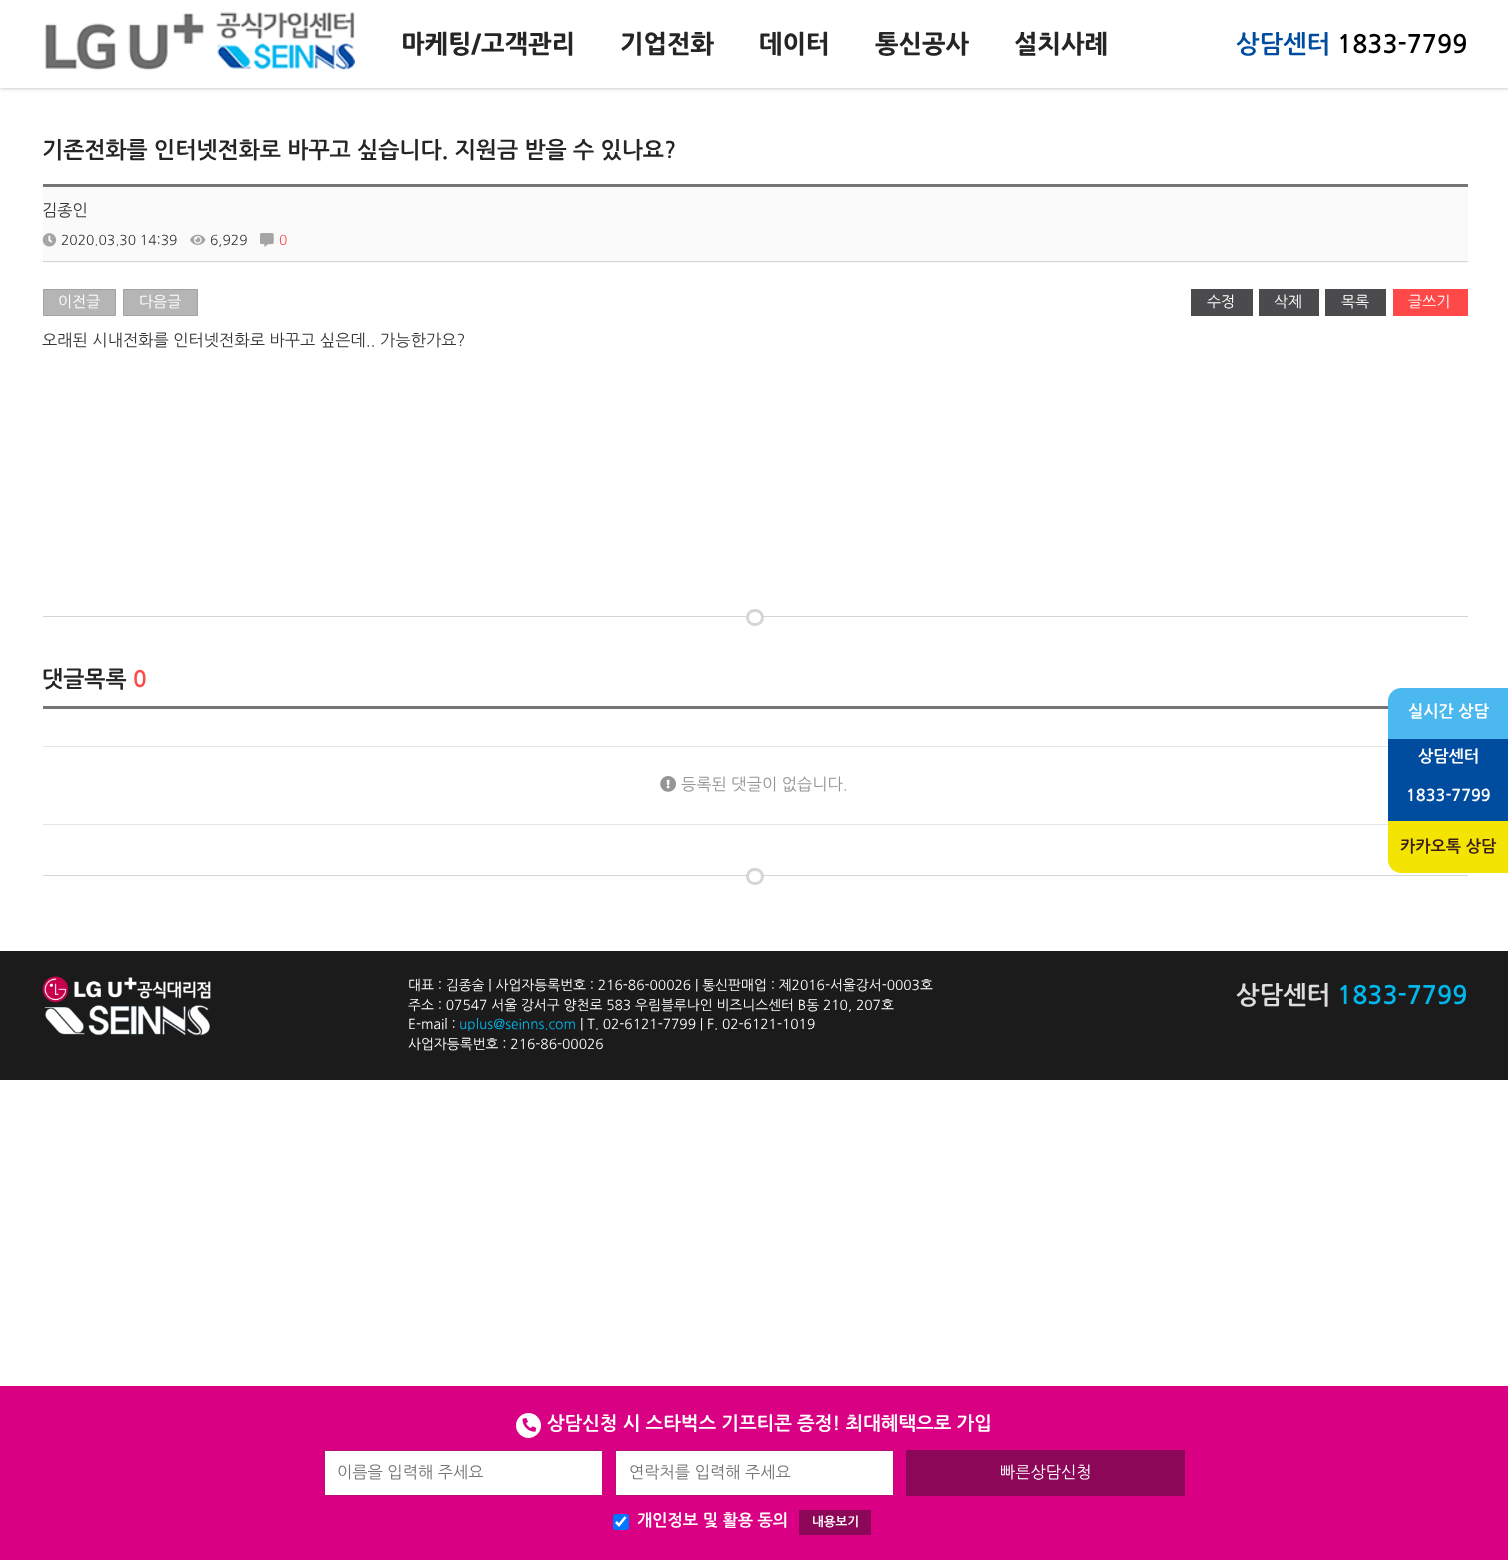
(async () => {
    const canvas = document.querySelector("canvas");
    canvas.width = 1508;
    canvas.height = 1560;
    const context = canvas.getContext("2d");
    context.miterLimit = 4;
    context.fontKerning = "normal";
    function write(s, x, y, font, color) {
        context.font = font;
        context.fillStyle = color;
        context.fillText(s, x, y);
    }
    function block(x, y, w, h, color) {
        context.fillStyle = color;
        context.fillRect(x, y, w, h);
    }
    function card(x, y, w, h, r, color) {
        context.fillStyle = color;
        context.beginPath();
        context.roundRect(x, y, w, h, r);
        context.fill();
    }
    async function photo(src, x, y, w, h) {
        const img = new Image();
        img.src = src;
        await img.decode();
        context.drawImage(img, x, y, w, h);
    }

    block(0, 0, 1508, 1560, "rgb(255, 255, 255)");
    context.save();
    context.beginPath();
    context.moveTo(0, 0);
    context.lineTo(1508, 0);
    context.lineTo(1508, 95);
    context.lineTo(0, 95);
    context.closePath();
    context.moveTo(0, 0);
    context.lineTo(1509, 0);
    context.lineTo(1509, 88);
    context.lineTo(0, 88);
    context.closePath();
    context.clip("evenodd");
    context.fillStyle = "rgba(0, 0, 0, 0.3)";
    context.filter = "blur(2px)";
    context.beginPath();
    context.rect(0, 0, 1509, 88);
    context.fill();
    context.filter = "none";
    context.restore();
    block(0, 87, 1508, 1, "rgba(255, 255, 255, 0.9)");
    await photo("media/1.png", 44, 12, 311, 59);
    write("마케팅/고객관리", 401, 53, "800 25px NanumGothic", "rgb(37, 37, 37)");
    write("기업전화", 620, 53, "800 25px NanumGothic", "rgb(37, 37, 37)");
    write("데이터", 759, 53, "800 25px NanumGothic", "rgb(37, 37, 37)");
    write("통신공사", 875, 53, "800 25px NanumGothic", "rgb(37, 37, 37)");
    write("설치사례", 1014, 53, "800 25px NanumGothic", "rgb(37, 37, 37)");
    write("상담센터", 1236, 53, "bold 25px NanumGothic", "rgb(0, 77, 160)");
    write("1833-7799", 1337, 53, "bold 25px NanumGothic", "rgb(0, 0, 0)");
    write("기존전화를 인터넷전화로 바꾸고 싶습니다. 지원금 받을 수 있나요?", 42, 158, "bold 22.5px NanumGothic", "rgb(37, 37, 37)");
    block(43, 187, 1425, 76, "rgb(250, 250, 250)");
    block(43, 184, 1425, 3, "rgb(117, 117, 117)");
    block(43, 261, 1425, 1, "rgb(213, 213, 213)");
    write("김종인", 42, 216, "16.25px NanumGothic", "rgb(53, 53, 53)");
    await photo("media/2.png", 42, 233, 14, 14);
    write("2020.03.30 14:39", 61, 245, "13.75px NanumGothic", "rgb(53, 53, 53)");
    await photo("media/3.png", 190, 234, 16, 11);
    write("6,929", 210, 245, "13.75px NanumGothic", "rgb(53, 53, 53)");
    await photo("media/4.png", 260, 233, 14, 14);
    write("0", 279, 245, "13.75px NanumGothic", "rgb(255, 72, 72)");
    context.fillStyle = "rgb(181, 181, 181)";
    context.beginPath();
    context.rect(43.5, 289.5, 72, 26);
    context.fill();
    context.strokeStyle = "rgb(163, 163, 163)";
    context.stroke();
    write("이전글", 58, 307, "15px NanumGothic", "rgb(255, 255, 255)");
    context.fillStyle = "rgb(181, 181, 181)";
    context.beginPath();
    context.rect(123.5, 289.5, 74, 26);
    context.fill();
    context.stroke();
    write("다음글", 139, 307, "15px NanumGothic", "rgb(255, 255, 255)");
    block(1191, 289, 62, 27, "rgb(75, 75, 77)");
    write("수정", 1207, 307, "15px NanumGothic", "rgb(255, 255, 255)");
    block(1259, 289, 60, 27, "rgb(75, 75, 77)");
    write("삭제", 1274, 307, "15px NanumGothic", "rgb(255, 255, 255)");
    block(1325, 289, 61, 27, "rgb(75, 75, 77)");
    write("목록", 1341, 307, "15px NanumGothic", "rgb(255, 255, 255)");
    block(1393, 289, 75, 27, "rgb(255, 72, 72)");
    write("글쓰기", 1408, 307, "15px NanumGothic", "rgb(255, 255, 255)");
    write("오래된 시내전화를 인터넷전화로 바꾸고 싶은데.. 가능한가요?", 42, 346, "16.25px NanumGothic", "rgb(53, 53, 53)");
    block(43, 616, 1425, 1, "rgb(213, 213, 213)");
    context.fillStyle = "rgb(255, 255, 255)";
    context.beginPath();
    context.roundRect(747.5, 610.5, 15, 14, 7);
    context.fill();
    context.strokeStyle = "rgb(213, 213, 213)";
    context.lineWidth = 3;
    context.stroke();
    block(43, 706, 1345, 3, "rgb(117, 117, 117)");
    write("댓글목록", 42, 687, "bold 22.5px NanumGothic", "rgb(37, 37, 37)");
    write("0", 133, 687, "bold 22.5px NanumGothic", "rgb(255, 72, 72)");
    block(43, 746, 1345, 1, "rgb(229, 229, 229)");
    block(43, 824, 1345, 1, "rgb(229, 229, 229)");
    await photo("media/5.png", 660, 776, 16, 16);
    write("등록된 댓글이 없습니다.", 681, 790, "16.25px NanumGothic", "rgb(149, 149, 149)");
    block(43, 875, 1425, 1, "rgb(213, 213, 213)");
    context.fillStyle = "rgb(255, 255, 255)";
    context.beginPath();
    context.roundRect(747.5, 869.5, 15, 14, 7);
    context.fill();
    context.stroke();
    context.fillStyle = "rgb(75, 184, 239)";
    context.beginPath();
    context.moveTo(1401, 688);
    context.lineTo(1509, 688);
    context.lineTo(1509, 739);
    context.lineTo(1388, 739);
    context.lineTo(1388, 701);
    context.bezierCurveTo(1388, 694, 1394, 688, 1401, 688);
    context.closePath();
    context.fill();
    write("실시간 상담", 1408, 717, "bold 16.25px NanumGothic", "rgb(255, 255, 255)");
    block(1388, 739, 120, 82, "rgb(0, 77, 160)");
    write("상담센터", 1418, 762, "bold 16.25px NanumGothic", "rgb(255, 255, 255)");
    write("1833-7799", 1406, 801, "bold 16.25px NanumGothic", "rgb(255, 255, 255)");
    context.fillStyle = "rgb(244, 228, 1)";
    context.beginPath();
    context.moveTo(1388, 821);
    context.lineTo(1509, 821);
    context.lineTo(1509, 873);
    context.lineTo(1401, 873);
    context.bezierCurveTo(1394, 873, 1388, 867, 1388, 860);
    context.closePath();
    context.fill();
    write("카카오톡 상담", 1400, 852, "bold 16.25px NanumGothic", "rgb(57, 30, 30)");
    block(0, 951, 1508, 129, "rgb(27, 27, 27)");
    await photo("media/6.png", 42, 976, 169, 60);
    write("대표 : 김종술 | 사업자등록번호 : 216-86-00026 | 통신판매업 : 제2016-서울강서-0003호", 408, 990, "13.75px NanumGothic", "rgb(255, 255, 255)");
    write("주소 : 07547 서울 강서구 양천로 583 우림블루나인 비즈니스센터 B동 210, 207호", 408, 1010, "13.75px NanumGothic", "rgb(255, 255, 255)");
    write("E-mail :", 408, 1029, "13.75px NanumGothic", "rgb(255, 255, 255)");
    write("uplus@seinns.com", 459, 1029, "13.75px NanumGothic", "rgb(0, 184, 238)");
    write("| T. 02-6121-7799 | F. 02-6121-1019", 580, 1029, "13.75px NanumGothic", "rgb(255, 255, 255)");
    write("사업자등록번호 : 216-86-00026", 408, 1049, "13.75px NanumGothic", "rgb(255, 255, 255)");
    write("상담센터", 1236, 1004, "bold 25px NanumGothic", "rgb(221, 221, 221)");
    write("1833-7799", 1337, 1004, "bold 25px NanumGothic", "rgb(0, 184, 238)");
    block(0, 1386, 1508, 174, "rgb(217, 0, 132)");
    context.fillStyle = "rgb(255, 255, 255)";
    context.beginPath();
    context.arc(528.5, 1425.5, 12.5, 0, Math.PI * 2);
    context.fill();
    await photo("media/7.png", 522, 1418, 15, 14);
    write("상담신청 시 스타벅스 기프티콘 증정! 최대혜택으로 가입", 547, 1430, "bold 18.75px NanumGothic", "rgb(255, 255, 255)");
    context.beginPath();
    context.rect(324.5, 1450.5, 278, 45);
    context.fill();
    context.strokeStyle = "rgb(185, 14, 118)";
    context.lineWidth = 1;
    context.stroke();
    write("이름을 입력해 주세요", 337, 1478, "16.25px NanumGothic", "rgb(117, 117, 117)");
    context.fillStyle = "rgb(255, 255, 255)";
    context.beginPath();
    context.rect(615.5, 1450.5, 278, 45);
    context.fill();
    context.stroke();
    write("연락처를 입력해 주세요", 629, 1478, "16.25px NanumGothic", "rgb(117, 117, 117)");
    block(906, 1450, 279, 46, "rgb(140, 7, 88)");
    write("빠른상담신청", 1000, 1478, "16.25px NanumGothic", "rgb(255, 255, 255)");
    card(613, 1514, 16, 16, 2.5, "rgb(0, 117, 255)");
    context.beginPath();
    context.moveTo(616, 1522);
    context.lineTo(619, 1525);
    context.lineTo(625.5, 1517);
    context.strokeStyle = "rgb(255, 255, 255)";
    context.lineWidth = 2.6;
    context.stroke();
    write("개인정보 및 활용 동의", 637, 1526, "bold 16.25px NanumGothic", "rgb(255, 255, 255)");
    block(799, 1510, 72, 25, "rgb(140, 7, 88)");
    write("내용보기", 812, 1526, "bold 12.5px NanumGothic", "rgb(255, 255, 255)");
})();
